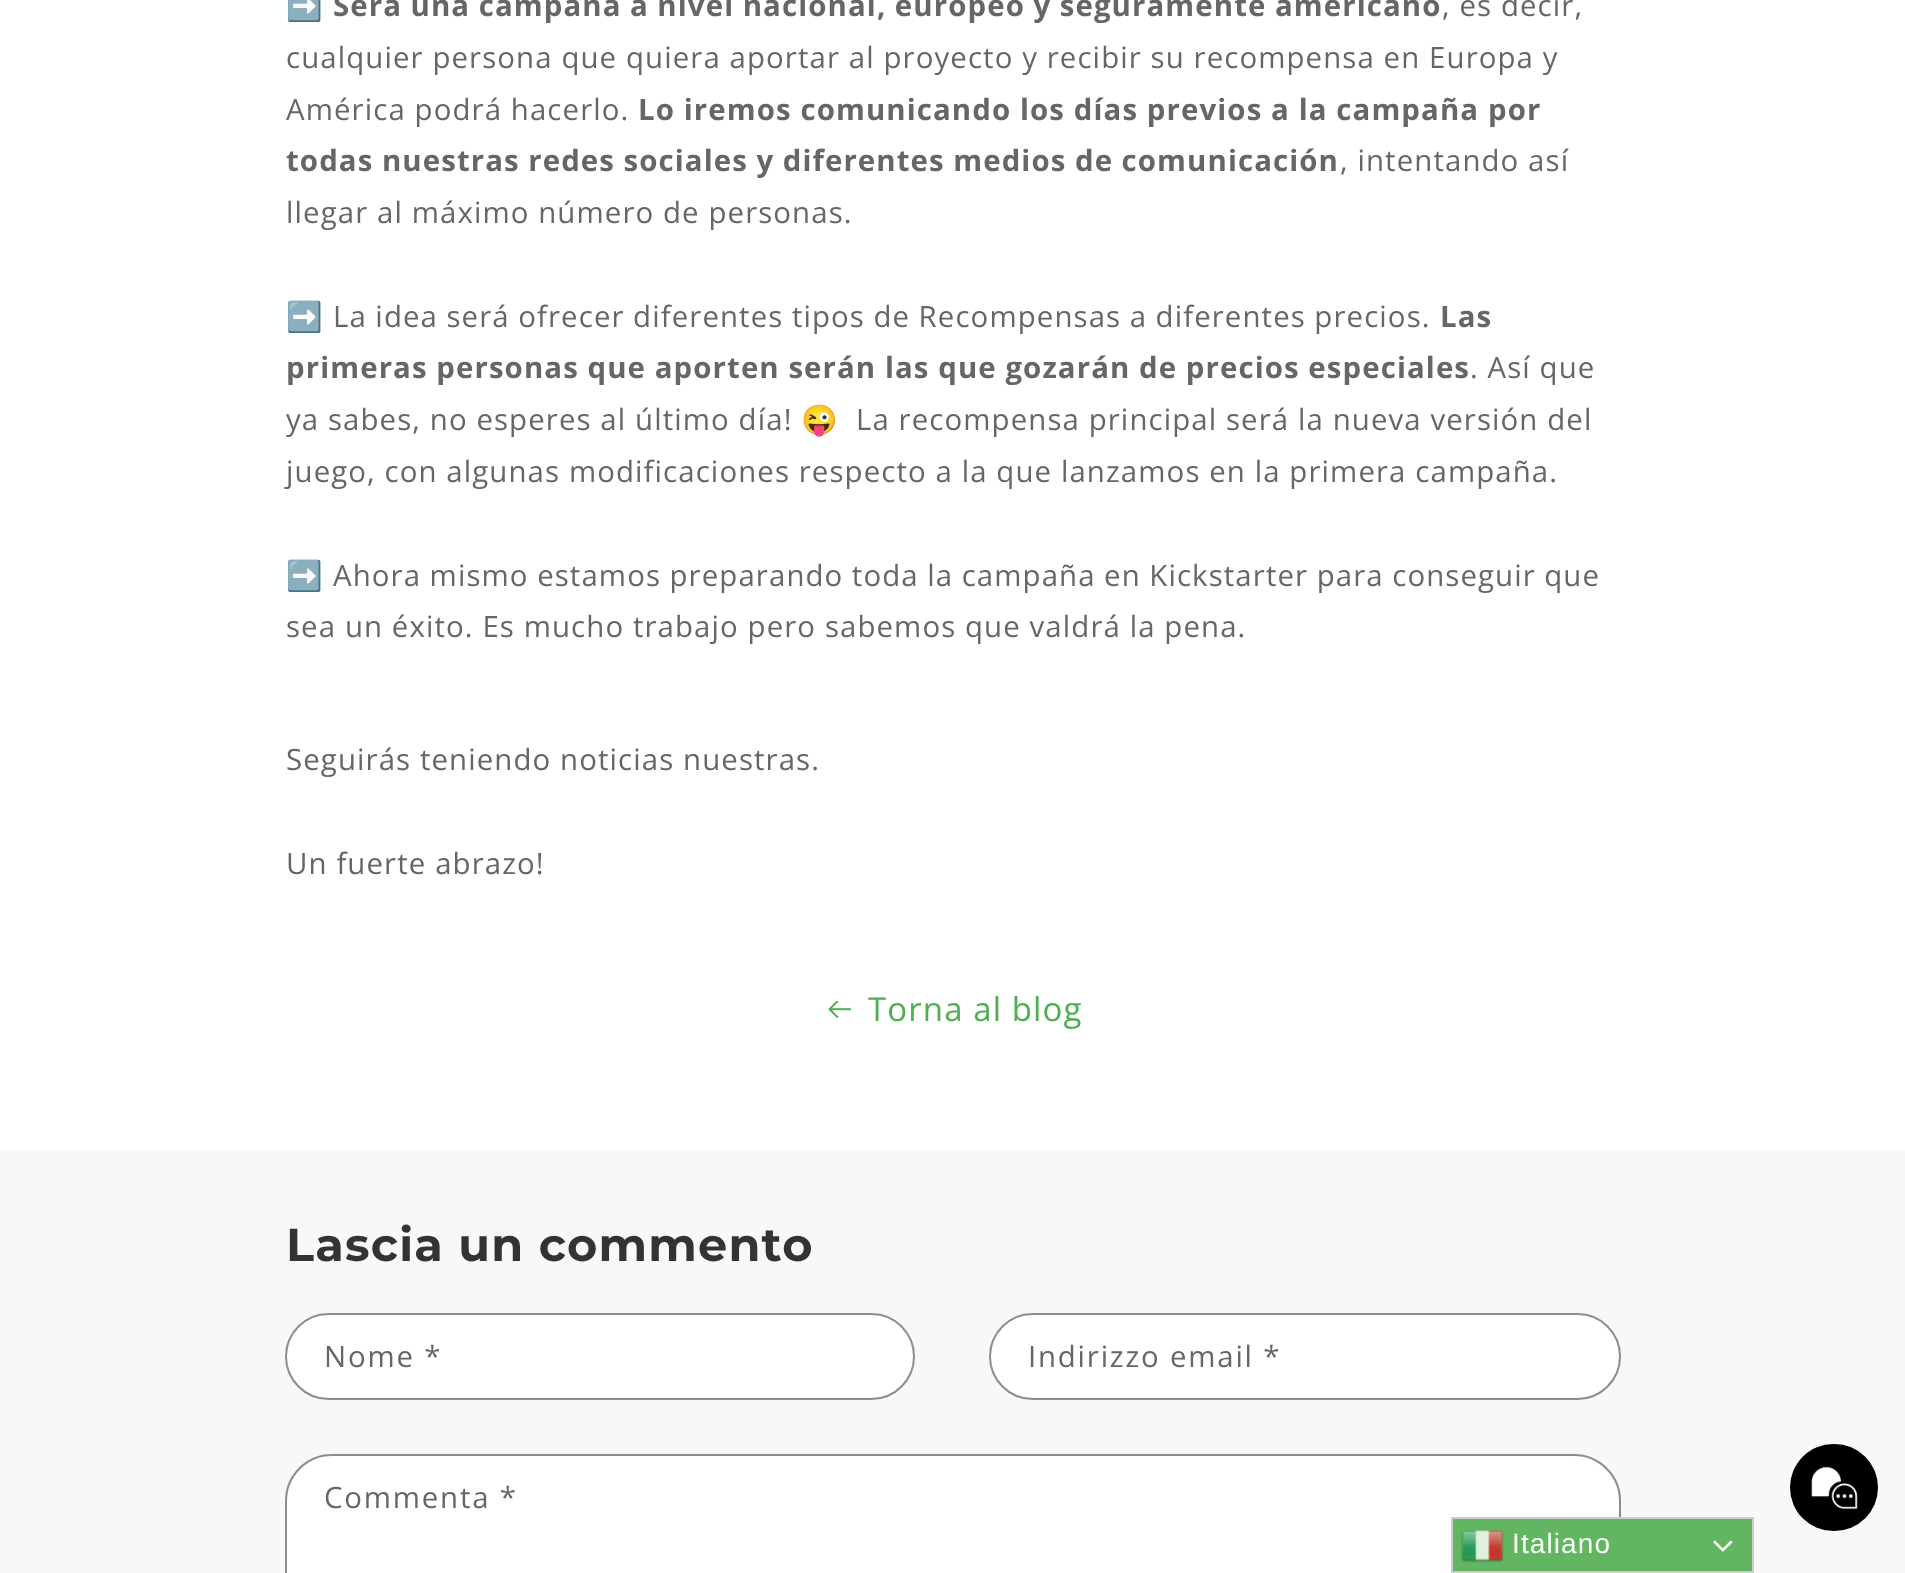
(async () => {
    const canvas = document.querySelector("canvas");
    canvas.width = 1905;
    canvas.height = 1573;
    const context = canvas.getContext("2d");
    context.miterLimit = 4;
    context.fontKerning = "normal";
    function write(s, x, y, font, color) {
        context.font = font;
        context.fillStyle = color;
        context.fillText(s, x, y);
    }
    function block(x, y, w, h, color) {
        context.fillStyle = color;
        context.fillRect(x, y, w, h);
    }
    function card(x, y, w, h, r, color) {
        context.fillStyle = color;
        context.beginPath();
        context.roundRect(x, y, w, h, r);
        context.fill();
    }
    async function photo(src, x, y, w, h) {
        const img = new Image();
        img.src = src;
        await img.decode();
        context.drawImage(img, x, y, w, h);
    }

    block(0, 0, 1905, 1573, "rgb(255, 255, 255)");
    context.letterSpacing = "1.1px";
    write("➡️", 286, 16, "bold 29.4px Noto Color Emoji", "rgb(102, 102, 102)");
    context.wordSpacing = "-0.25px";
    write("Será una campaña a nivel nacional, europeo y seguramente americano", 333, 16, "bold 29.4px Open Sans", "rgb(102, 102, 102)");
    context.wordSpacing = "0px";
    write(", es decir,", 1442, 16, "29.4px Open Sans", "rgb(102, 102, 102)");
    write("cualquier persona que quiera aportar al proyecto y recibir su recompensa en Europa y", 286, 68, "29.4px Open Sans", "rgb(102, 102, 102)");
    write("América podrá hacerlo.", 286, 120, "29.4px Open Sans", "rgb(102, 102, 102)");
    write("Lo iremos comunicando los días previos a la campaña por", 638, 120, "bold 29.4px Open Sans", "rgb(102, 102, 102)");
    context.wordSpacing = "-0.25px";
    write("todas nuestras redes sociales y diferentes medios de comunicación", 286, 171, "bold 29.4px Open Sans", "rgb(102, 102, 102)");
    context.wordSpacing = "0px";
    write(", intentando así", 1340, 171, "29.4px Open Sans", "rgb(102, 102, 102)");
    write("llegar al máximo número de personas.", 286, 223, "29.4px Open Sans", "rgb(102, 102, 102)");
    write("➡️", 286, 327, "29.4px Noto Color Emoji", "rgb(102, 102, 102)");
    context.wordSpacing = "-0.25px";
    write("La idea será ofrecer diferentes tipos de Recompensas a diferentes precios.", 333, 327, "29.4px Open Sans", "rgb(102, 102, 102)");
    context.wordSpacing = "0px";
    write("Las", 1440, 327, "bold 29.4px Open Sans", "rgb(102, 102, 102)");
    context.wordSpacing = "-0.1px";
    write("primeras personas que aporten serán las que gozarán de precios especiales", 286, 378, "bold 29.4px Open Sans", "rgb(102, 102, 102)");
    context.wordSpacing = "0px";
    write(". Así que", 1470, 378, "29.4px Open Sans", "rgb(102, 102, 102)");
    write("ya sabes, no esperes al último día!", 286, 430, "29.4px Open Sans", "rgb(102, 102, 102)");
    write("😜", 801, 430, "29.4px Noto Color Emoji", "rgb(102, 102, 102)");
    write("La recompensa principal será la nueva versión del", 856, 430, "29.4px Open Sans", "rgb(102, 102, 102)");
    write("juego, con algunas modificaciones respecto a la que lanzamos en la primera campaña.", 286, 482, "29.4px Open Sans", "rgb(102, 102, 102)");
    write("➡️", 286, 586, "29.4px Noto Color Emoji", "rgb(102, 102, 102)");
    context.wordSpacing = "-0.25px";
    write("Ahora mismo estamos preparando toda la campaña en Kickstarter para conseguir que", 333, 586, "29.4px Open Sans", "rgb(102, 102, 102)");
    context.wordSpacing = "0px";
    write("sea un éxito. Es mucho trabajo pero sabemos que valdrá la pena.", 286, 637, "29.4px Open Sans", "rgb(102, 102, 102)");
    write("Seguirás teniendo noticias nuestras.", 286, 770, "29.4px Open Sans", "rgb(102, 102, 102)");
    write("Un fuerte abrazo!", 286, 874, "29.4px Open Sans", "rgb(102, 102, 102)");
    await photo("media/1.png", 828, 1001, 23, 17);
    write("Torna al blog", 868, 1021, "33px Open Sans", "rgb(76, 175, 80)");
    block(0, 1150, 1905, 423, "rgb(248, 248, 248)");
    context.letterSpacing = "1.2px";
    write("Lascia un commento", 286, 1261, "bold 46.25px Montserrat", "rgb(51, 51, 51)");
    card(287, 1314, 627, 84, 42, "rgb(255, 255, 255)");
    context.beginPath();
    context.roundRect(286, 1314, 628, 85, 42.5);
    context.strokeStyle = "rgba(51, 51, 51, 0.55)";
    context.lineWidth = 2;
    context.stroke();
    context.letterSpacing = "1.8px";
    write("Nome *", 324, 1367, "29.4px Open Sans", "rgb(102, 102, 102)");
    card(991, 1314, 628, 84, 42, "rgb(255, 255, 255)");
    context.beginPath();
    context.roundRect(990, 1314, 630, 85, 42.5);
    context.stroke();
    write("Indirizzo email *", 1028, 1367, "29.4px Open Sans", "rgb(102, 102, 102)");
    card(287, 1456, 1332, 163, 46, "rgb(255, 255, 255)");
    context.beginPath();
    context.roundRect(286, 1455, 1334, 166, 46);
    context.strokeStyle = "rgb(140, 140, 140)";
    context.stroke();
    write("Commenta *", 324, 1508, "29.4px Open Sans", "rgb(102, 102, 102)");
    card(1790, 1444, 88, 87, 43.5, "rgb(0, 0, 0)");
    await photo("media/2.png", 1811, 1466, 47, 44);
    context.fillStyle = "rgb(98, 181, 97)";
    context.beginPath();
    context.rect(1452, 1518, 301, 54);
    context.fill();
    context.strokeStyle = "rgb(204, 204, 204)";
    context.stroke();
    await photo("media/3.png", 1461, 1530, 43, 33);
    context.letterSpacing = "1.1px";
    write("Italiano", 1512, 1553, "28px Liberation Sans", "rgb(255, 255, 255)");
    await photo("media/4.png", 1713, 1540, 20, 12);
})();
